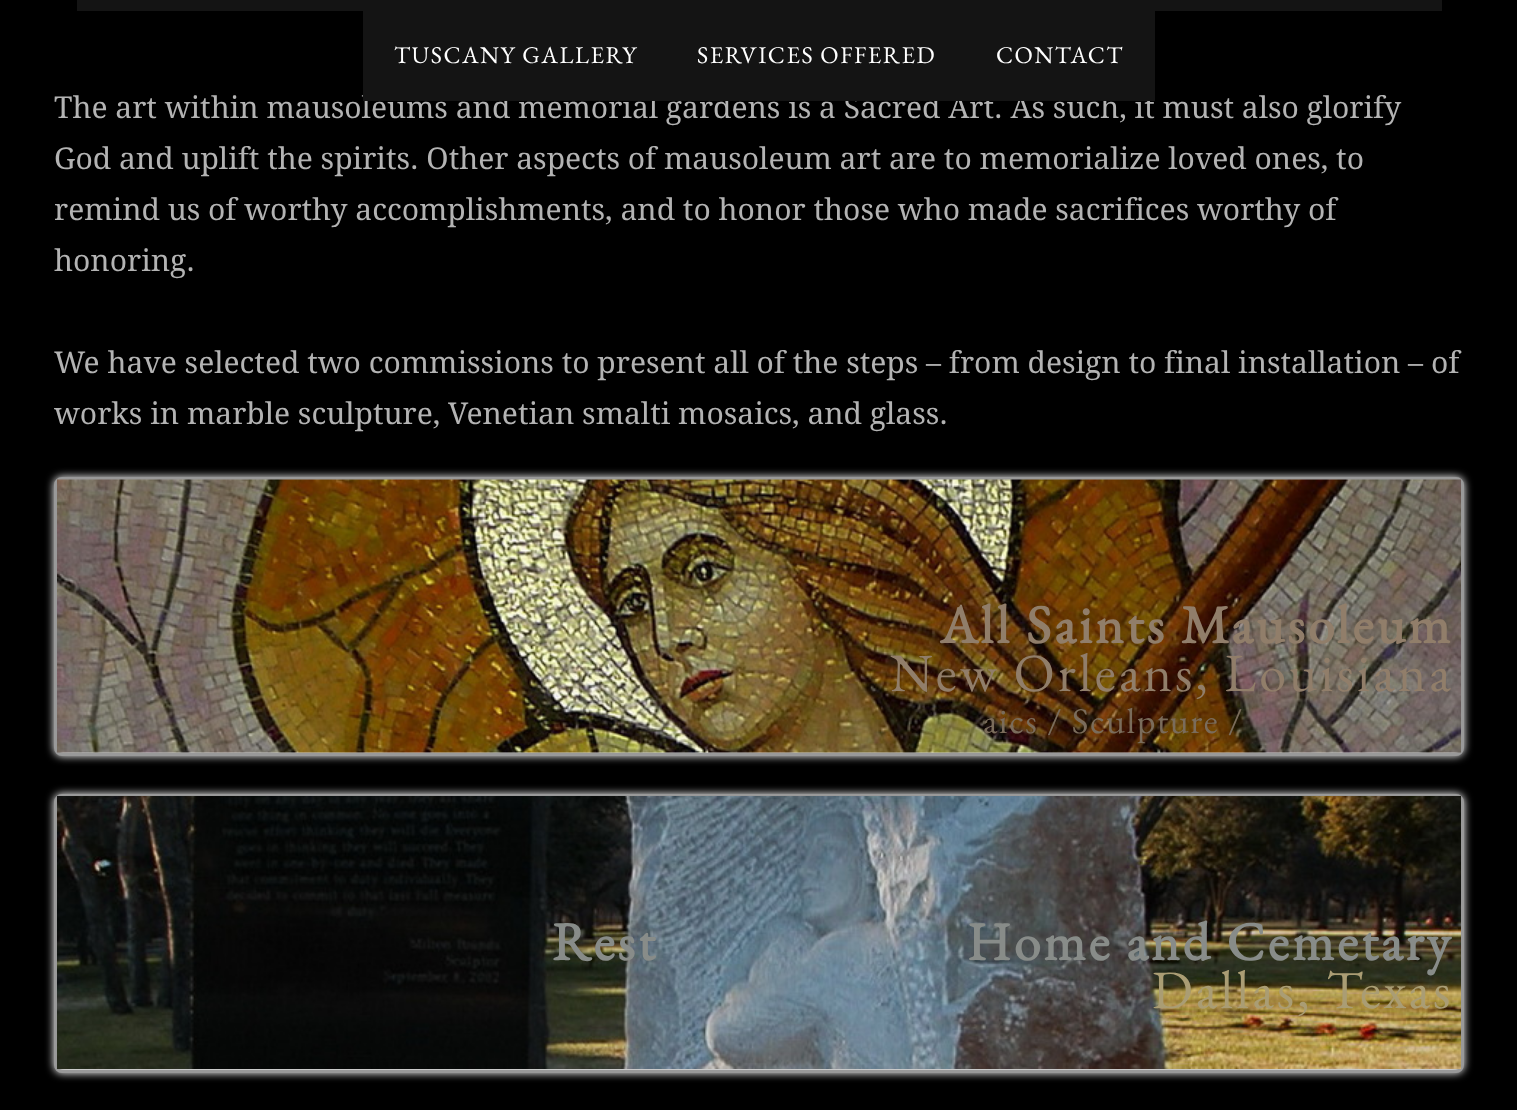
(async () => {
    const canvas = document.querySelector("canvas");
    canvas.width = 1517;
    canvas.height = 1110;
    const context = canvas.getContext("2d");
    context.miterLimit = 4;
    context.fontKerning = "normal";
    function write(s, x, y, font, color) {
        context.font = font;
        context.fillStyle = color;
        context.fillText(s, x, y);
    }
    function block(x, y, w, h, color) {
        context.fillStyle = color;
        context.fillRect(x, y, w, h);
    }
    async function photo(src, x, y, w, h) {
        const img = new Image();
        img.src = src;
        await img.decode();
        context.drawImage(img, x, y, w, h);
    }

    block(0, 0, 1517, 1110, "rgb(0, 0, 0)");
    block(77, 0, 1365, 11, "rgb(20, 20, 20)");
    write("The art within mausoleums and memorial gardens is a Sacred Art. As such, it must also glorify", 54, 118, "30px Droid Serif", "rgb(179, 179, 179)");
    block(363, 11, 792, 90, "rgb(20, 20, 20)");
    context.letterSpacing = "1.5px";
    write("TUSCANY GALLERY", 394, 63, "24px EB Garamond", "rgb(255, 255, 255)");
    write("SERVICES OFFERED", 697, 63, "24px EB Garamond", "rgb(255, 255, 255)");
    write("CONTACT", 996, 63, "24px EB Garamond", "rgb(255, 255, 255)");
    context.letterSpacing = "0px";
    write("God and uplift the spirits. Other aspects of mausoleum art are to memorialize loved ones, to", 54, 169, "30px Droid Serif", "rgb(179, 179, 179)");
    write("remind us of worthy accomplishments, and to honor those who made sacrifices worthy of", 54, 220, "30px Droid Serif", "rgb(179, 179, 179)");
    write("honoring.", 54, 271, "30px Droid Serif", "rgb(179, 179, 179)");
    write("We have selected two commissions to present all of the steps – from design to final installation – of", 54, 373, "30px Droid Serif", "rgb(179, 179, 179)");
    write("works in marble sculpture, Venetian smalti mosaics, and glass.", 54, 424, "30px Droid Serif", "rgb(179, 179, 179)");
    context.fillStyle = "rgb(255, 255, 255)";
    context.filter = "blur(4.5px)";
    context.beginPath();
    context.roundRect(54, 477, 1410, 279, 8);
    context.fill();
    context.filter = "none";
    context.beginPath();
    context.roundRect(55.5, 478.5, 1407, 276, 6.5);
    context.strokeStyle = "rgb(153, 153, 153)";
    context.lineWidth = 3;
    context.stroke();
    await photo("media/1.png", 57, 479, 1404, 274);
    context.letterSpacing = "3px";
    write("All Saints Mausoleum", 940, 643, "bold 54px EB Garamond", "rgb(145, 126, 106)");
    write("New Orleans, Louisiana", 890, 691, "54px EB Garamond", "rgb(145, 126, 106)");
    context.letterSpacing = "1.5px";
    write("aics / Sculpture /", 983, 733, "36px EB Garamond", "rgb(122, 108, 91)");
    context.fillStyle = "rgb(255, 255, 255)";
    context.filter = "blur(4.5px)";
    context.beginPath();
    context.roundRect(54, 794, 1410, 279, 8);
    context.fill();
    context.filter = "none";
    context.beginPath();
    context.roundRect(55.5, 795.5, 1407, 276, 6.5);
    context.stroke();
    await photo("media/2.png", 57, 796, 1404, 273);
    context.letterSpacing = "3px";
    write("Rest", 552, 960, "bold 54px EB Garamond", "rgb(136, 140, 137)");
    write("Home and Cemetary", 967, 960, "bold 54px EB Garamond", "rgb(136, 140, 137)");
    write("Dallas, Texas", 1152, 1008, "54px EB Garamond", "rgb(170, 157, 116)");
})();
